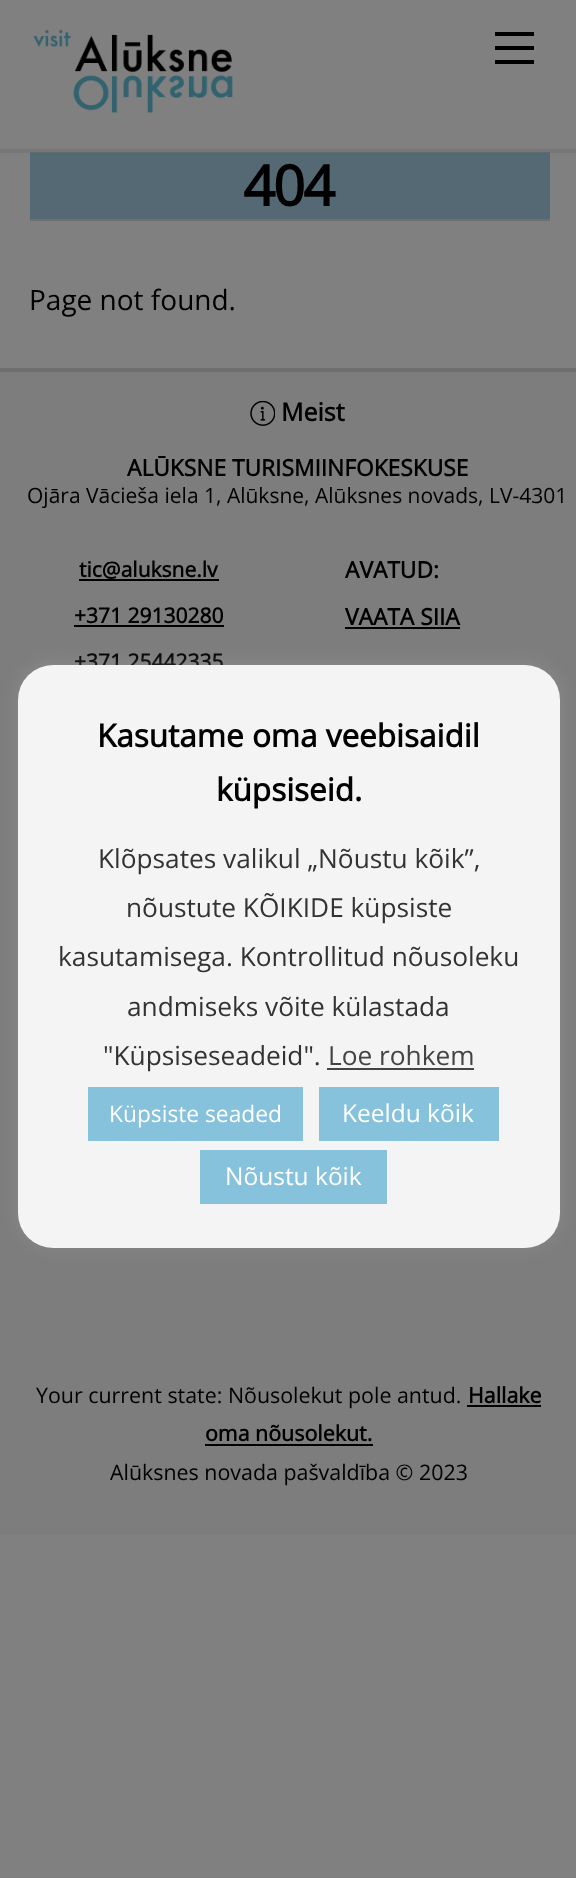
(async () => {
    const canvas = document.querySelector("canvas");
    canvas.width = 576;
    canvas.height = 1878;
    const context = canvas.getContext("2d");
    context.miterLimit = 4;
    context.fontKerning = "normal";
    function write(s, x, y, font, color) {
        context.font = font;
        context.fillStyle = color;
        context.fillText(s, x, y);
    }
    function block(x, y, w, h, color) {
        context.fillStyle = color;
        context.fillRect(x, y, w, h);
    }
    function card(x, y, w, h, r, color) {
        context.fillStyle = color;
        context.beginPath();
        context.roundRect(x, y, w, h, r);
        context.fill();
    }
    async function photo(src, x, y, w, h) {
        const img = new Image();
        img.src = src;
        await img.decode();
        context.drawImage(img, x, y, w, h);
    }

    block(0, 0, 576, 1878, "rgb(128, 128, 128)");
    block(0, 149, 576, 4, "rgb(119, 119, 119)");
    await photo("media/1.png", 33, 29, 200, 84);
    block(495, 60, 39, 4, "rgb(0, 0, 0)");
    block(495, 32, 39, 4, "rgb(0, 0, 0)");
    block(495, 46, 39, 4, "rgb(0, 0, 0)");
    block(30, 153, 520, 66, "rgb(84, 105, 115)");
    block(30, 152, 520, 1, "rgb(97, 108, 112)");
    block(30, 219, 520, 2, "rgb(110, 110, 110)");
    context.letterSpacing = "-2px";
    write("404", 243, 206, "bold 56px Open Sans", "rgb(0, 0, 0)");
    context.letterSpacing = "0px";
    write("Page not found.", 29, 310, "28px Open Sans", "rgb(0, 0, 0)");
    block(0, 372, 576, 1163, "rgb(125, 125, 125)");
    block(0, 368, 576, 4, "rgb(110, 110, 110)");
    await photo("media/2.png", 250, 401, 25, 25);
    write("Meist", 281, 421, "bold 25px Open Sans", "rgb(0, 0, 0)");
    write("ALŪKSNE TURISMIINFOKESKUSE", 127, 476, "bold 22.75px Open Sans", "rgb(0, 0, 0)");
    write("Ojāra Vācieša iela 1, Alūksne, Alūksnes novads, LV-4301", 27, 503, "21px Open Sans", "rgb(0, 0, 0)");
    write("tic@aluksne.lv", 79, 577, "bold 21px Open Sans", "rgb(0, 0, 0)");
    block(79, 579, 140, 2, "rgb(0, 0, 0)");
    write("+371 29130280", 74, 623, "bold 21px Open Sans", "rgb(0, 0, 0)");
    block(74, 625, 150, 2, "rgb(0, 0, 0)");
    write("+371 25442335", 74, 669, "bold 21px Open Sans", "rgb(0, 0, 0)");
    write("AVATUD:", 345, 578, "bold 22.75px Open Sans", "rgb(0, 0, 0)");
    write("VAATA SIIA", 345, 625, "bold 22.75px Open Sans", "rgb(0, 0, 0)");
    block(345, 627, 115, 2, "rgb(0, 0, 0)");
    write("Your current state: Nõusolekut pole antud.", 36, 1403, "21.4px Open Sans", "rgb(0, 0, 0)");
    write("Hallake", 468, 1403, "bold 21.4px Open Sans", "rgb(0, 0, 0)");
    block(467, 1405, 74, 2, "rgb(0, 0, 0)");
    write("oma nõusolekut.", 205, 1441, "bold 21.4px Open Sans", "rgb(0, 0, 0)");
    block(205, 1444, 168, 2, "rgb(0, 0, 0)");
    write("Alūksnes novada pašvaldība © 2023", 110, 1480, "21.4px Open Sans", "rgb(0, 0, 0)");
    context.fillStyle = "rgba(172, 171, 171, 0.3)";
    context.filter = "blur(9px)";
    context.beginPath();
    context.roundRect(18, 663, 542, 583, 35);
    context.fill();
    context.filter = "none";
    card(18, 665, 542, 583, 35, "rgb(244, 244, 244)");
    write("Kasutame oma veebisaidil", 97, 747, "bold 31.5px Open Sans", "rgb(0, 0, 0)");
    write("küpsiseid.", 216, 801, "bold 31.5px Open Sans", "rgb(0, 0, 0)");
    write("Klõpsates valikul „Nõustu kõik”,", 98, 868, "26.25px Open Sans", "rgb(51, 51, 51)");
    write("nõustute KÕIKIDE küpsiste", 126, 917, "26.25px Open Sans", "rgb(51, 51, 51)");
    write("kasutamisega. Kontrollitud nõusoleku", 58, 966, "26.25px Open Sans", "rgb(51, 51, 51)");
    write("andmiseks võite külastada", 127, 1016, "26.25px Open Sans", "rgb(51, 51, 51)");
    write("\"Küpsiseseadeid\".", 103, 1065, "26.25px Open Sans", "rgb(51, 51, 51)");
    write("Loe rohkem", 328, 1065, "26.25px Open Sans", "rgb(68, 68, 68)");
    block(327, 1068, 147, 2, "rgb(68, 68, 68)");
    block(88, 1087, 215, 54, "rgb(134, 194, 220)");
    write("Küpsiste seaded", 109, 1122, "22.75px Open Sans", "rgb(255, 255, 255)");
    block(319, 1087, 180, 54, "rgb(134, 194, 220)");
    write("Keeldu kõik", 342, 1122, "24.5px Open Sans", "rgb(255, 255, 255)");
    block(200, 1150, 187, 54, "rgb(134, 194, 220)");
    write("Nõustu kõik", 225, 1185, "24.5px Open Sans", "rgb(255, 255, 255)");
})();
